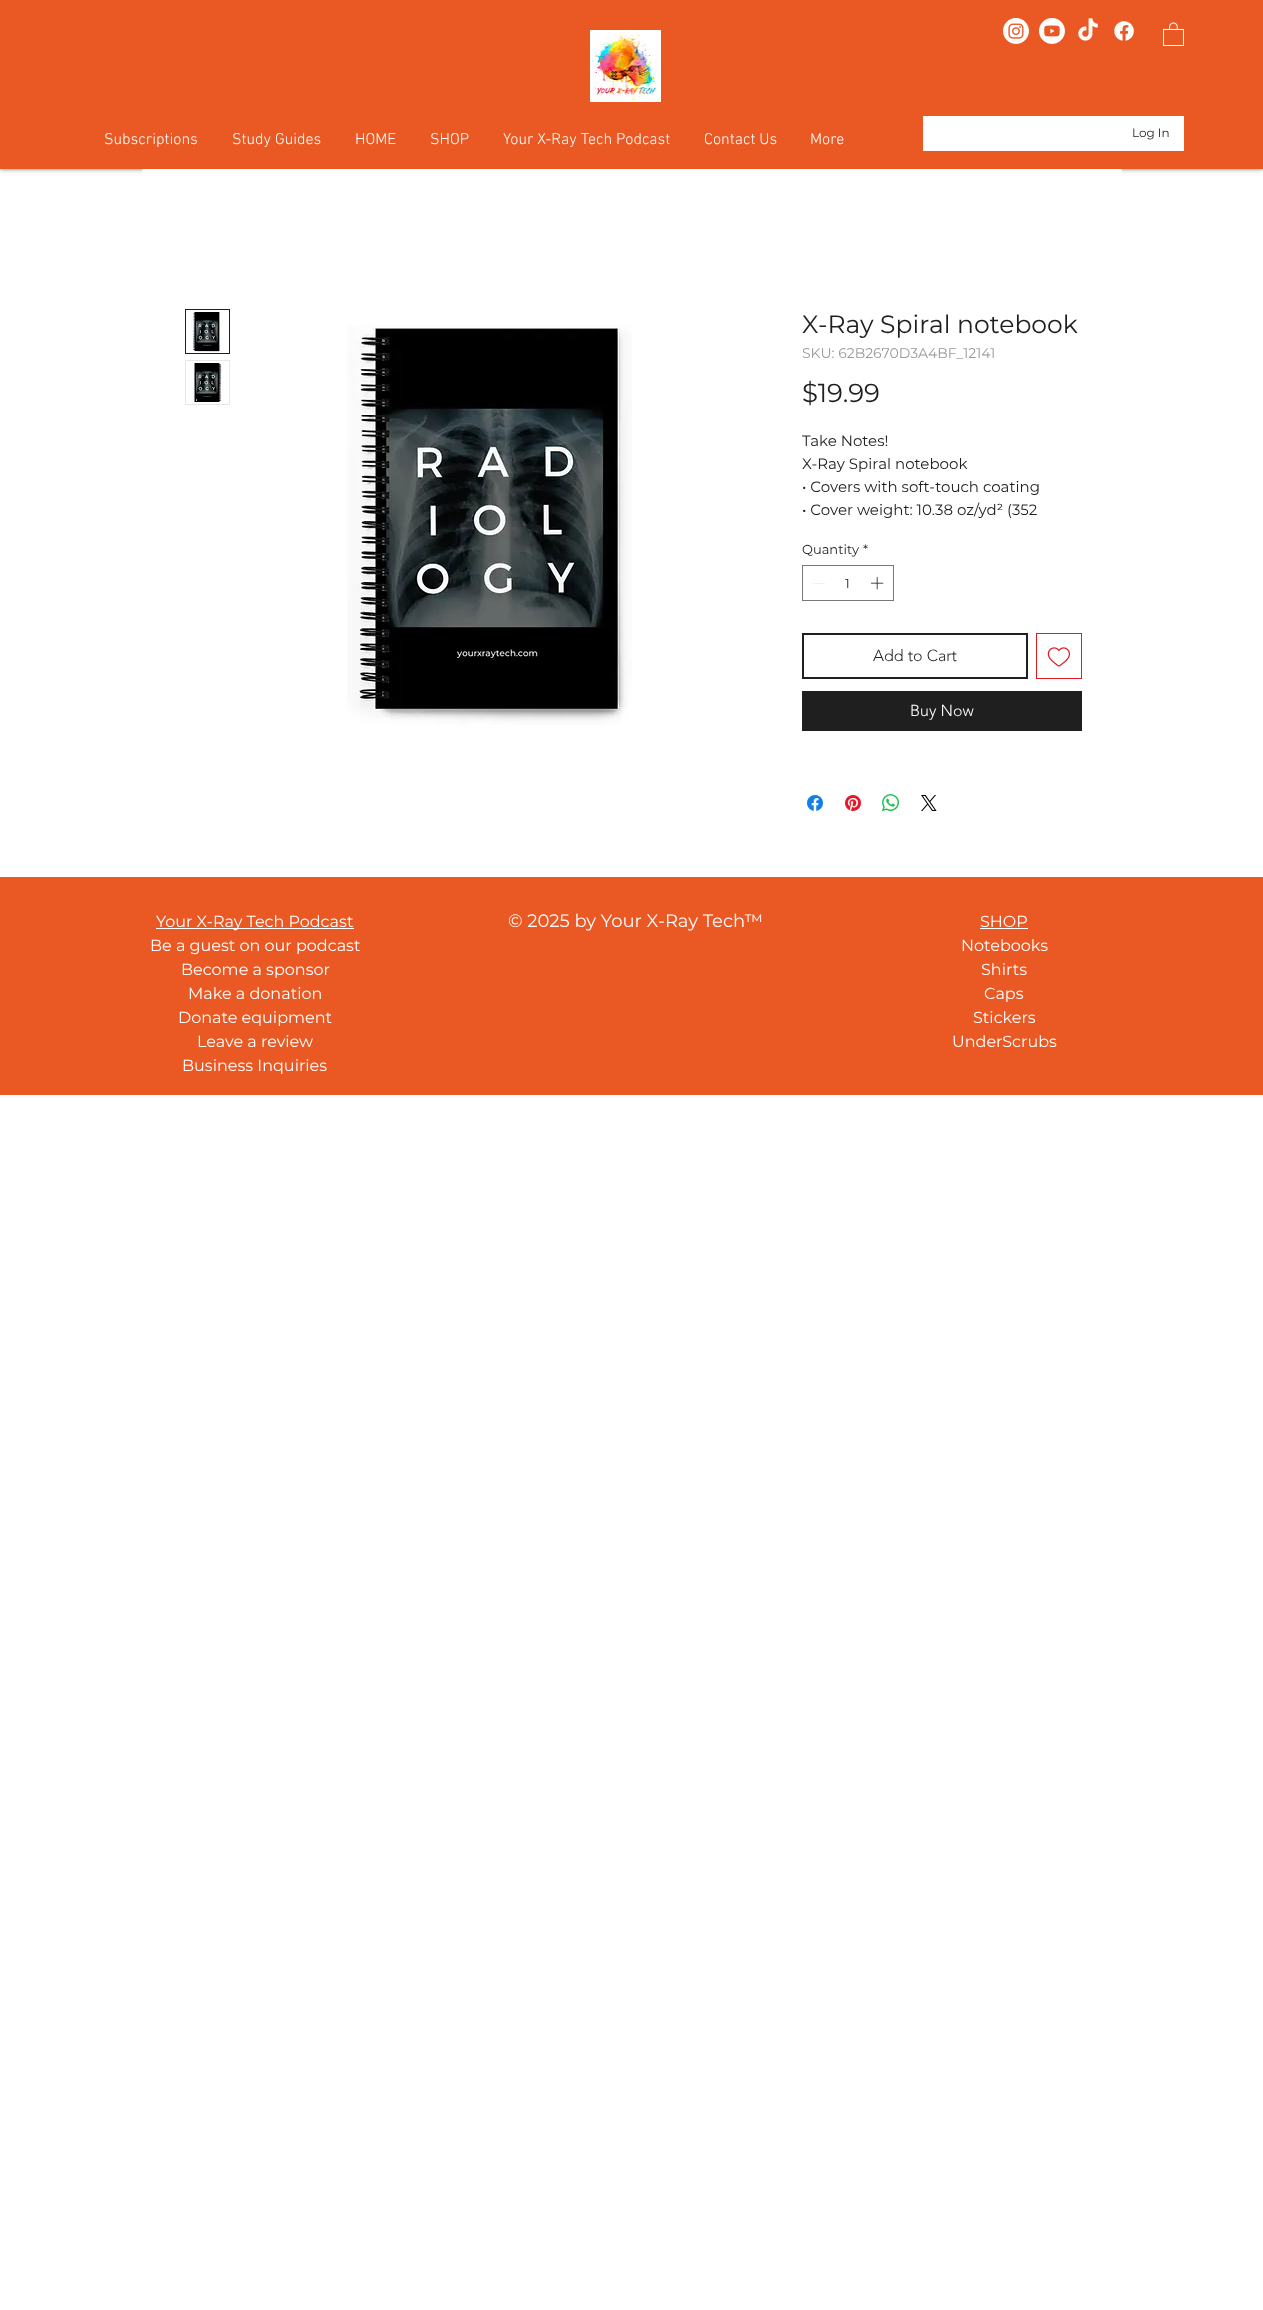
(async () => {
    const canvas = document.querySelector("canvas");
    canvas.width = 1263;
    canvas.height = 2310;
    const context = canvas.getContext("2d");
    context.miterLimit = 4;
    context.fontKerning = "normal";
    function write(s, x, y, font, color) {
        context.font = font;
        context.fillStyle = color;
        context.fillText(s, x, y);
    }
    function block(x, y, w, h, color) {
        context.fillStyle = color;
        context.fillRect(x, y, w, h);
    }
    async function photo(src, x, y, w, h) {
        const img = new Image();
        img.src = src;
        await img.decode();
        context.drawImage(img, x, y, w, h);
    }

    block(0, 0, 1263, 2310, "rgb(255, 255, 255)");
    context.fillStyle = "rgba(0, 0, 0, 0.5)";
    context.filter = "blur(2.5px)";
    context.beginPath();
    context.rect(0, 0, 1263, 169);
    context.fill();
    context.filter = "none";
    block(0, 0, 1263, 169, "rgb(234, 88, 35)");
    await photo("media/1.png", 590, 30, 71, 72);
    await photo("media/2.png", 1003, 18, 26, 26);
    await photo("media/3.png", 1039, 18, 26, 26);
    await photo("media/4.png", 1078, 18, 20, 23);
    await photo("media/5.png", 1114, 21, 20, 20);
    await photo("media/6.png", 1163, 22, 21, 24);
    write("Subscriptions", 104, 144, "300 16px 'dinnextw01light'", "rgb(255, 255, 255)");
    write("Study Guides", 232, 144, "300 16px 'dinnextw01light'", "rgb(255, 255, 255)");
    write("HOME", 355, 144, "300 16px 'dinnextw01light'", "rgb(255, 255, 255)");
    write("SHOP", 430, 144, "300 16px 'dinnextw01light'", "rgb(255, 255, 255)");
    write("Your X-Ray Tech Podcast", 503, 144, "300 16px 'dinnextw01light'", "rgb(255, 255, 255)");
    write("Contact Us", 704, 144, "300 16px 'dinnextw01light'", "rgb(255, 255, 255)");
    write("More", 810, 144, "300 16px 'dinnextw01light'", "rgb(255, 255, 255)");
    block(923, 116, 261, 35, "rgb(255, 255, 255)");
    write("Log In", 1132, 137, "12px Montserrat", "rgb(31, 31, 31)");
    block(142, 169, 980, 5, "rgb(255, 255, 255)");
    context.strokeStyle = "rgb(31, 31, 31)";
    context.strokeRect(185.5, 309.5, 44, 44);
    await photo("media/7.png", 190, 310, 32, 42);
    context.strokeStyle = "rgb(232, 230, 230)";
    context.strokeRect(185.5, 360.5, 44, 44);
    await photo("media/8.png", 194, 361, 28, 41);
    await photo("media/9.png", 347, 325, 285, 400);
    write("X-Ray Spiral notebook", 802, 333, "25px Montserrat", "rgb(31, 31, 31)");
    write("SKU: 62B2670D3A4BF_12141", 802, 358, "14px Montserrat", "rgb(153, 153, 151)");
    write("$19.99", 802, 402, "26px Montserrat", "rgb(31, 31, 31)");
    write("Take Notes!", 802, 446, "15px Montserrat", "rgb(31, 31, 31)");
    write("X-Ray Spiral notebook", 802, 469, "15px Montserrat", "rgb(31, 31, 31)");
    write("• Covers with soft-touch coating", 802, 492, "15px Montserrat", "rgb(31, 31, 31)");
    write("• Cover weight: 10.38 oz/yd² (352", 802, 515, "15px Montserrat", "rgb(31, 31, 31)");
    write("Quantity", 802, 554, "13px Montserrat", "rgb(31, 31, 31)");
    write("*", 863, 554, "13px Montserrat", "rgb(31, 31, 31)");
    context.strokeStyle = "rgb(121, 121, 121)";
    context.strokeRect(802.5, 565.5, 91, 35);
    context.fillStyle = "rgb(227, 227, 227)";
    context.beginPath();
    context.moveTo(825, 583);
    context.lineTo(825, 583.5);
    context.lineTo(813, 583.5);
    context.lineTo(813, 583);
    context.closePath();
    context.fill("evenodd");
    write("1", 845, 588, "13px Montserrat", "rgb(31, 31, 31)");
    await photo("media/10.png", 871, 577, 13, 13);
    context.strokeStyle = "rgb(31, 31, 31)";
    context.lineWidth = 2;
    context.strokeRect(803, 634, 224, 44);
    write("Add to Cart", 873, 661, "300 16px 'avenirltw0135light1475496'", "rgb(31, 31, 31)");
    context.strokeStyle = "rgb(226, 28, 33)";
    context.lineWidth = 1;
    context.strokeRect(1036.5, 633.5, 45, 45);
    await photo("media/11.png", 1047, 647, 23, 20);
    block(802, 691, 280, 40, "rgb(31, 31, 31)");
    write("Buy Now", 910, 716, "300 16px 'avenirltw0135light1475496'", "rgb(255, 255, 255)");
    await photo("media/12.png", 807, 795, 16, 16);
    await photo("media/13.png", 845, 795, 16, 16);
    await photo("media/14.png", 882, 794, 17, 17);
    await photo("media/15.png", 921, 795, 16, 16);
    block(0, 877, 1263, 218, "rgb(234, 88, 35)");
    block(156, 928, 198, 1, "rgb(255, 255, 255)");
    write("Your X-Ray Tech Podcast", 156, 927, "16px Montserrat", "rgb(255, 255, 255)");
    write("Be a guest on our podcast", 150, 951, "16px Montserrat", "rgb(255, 255, 255)");
    write("Become a sponsor", 181, 975, "16px Montserrat", "rgb(255, 255, 255)");
    write("Make a donation", 188, 999, "16px Montserrat", "rgb(255, 255, 255)");
    write("Donate equipment", 178, 1023, "16px Montserrat", "rgb(255, 255, 255)");
    write("Leave a review", 197, 1047, "16px Montserrat", "rgb(255, 255, 255)");
    write("Business Inquiries", 182, 1071, "16px Montserrat", "rgb(255, 255, 255)");
    write("© 2025 by Your X-Ray Tech™", 508, 927, "18px Montserrat", "rgb(255, 255, 255)");
    write("SHOP", 980, 927, "16px Montserrat", "rgb(255, 255, 255)");
    block(980, 928, 48, 1, "rgb(255, 255, 255)");
    write("Notebooks", 961, 951, "16px Montserrat", "rgb(255, 255, 255)");
    write("Shirts", 981, 975, "16px Montserrat", "rgb(255, 255, 255)");
    write("Caps", 984, 999, "16px Montserrat", "rgb(255, 255, 255)");
    write("Stickers", 973, 1023, "16px Montserrat", "rgb(255, 255, 255)");
    write("UnderScrubs", 952, 1047, "16px Montserrat", "rgb(255, 255, 255)");
})();
